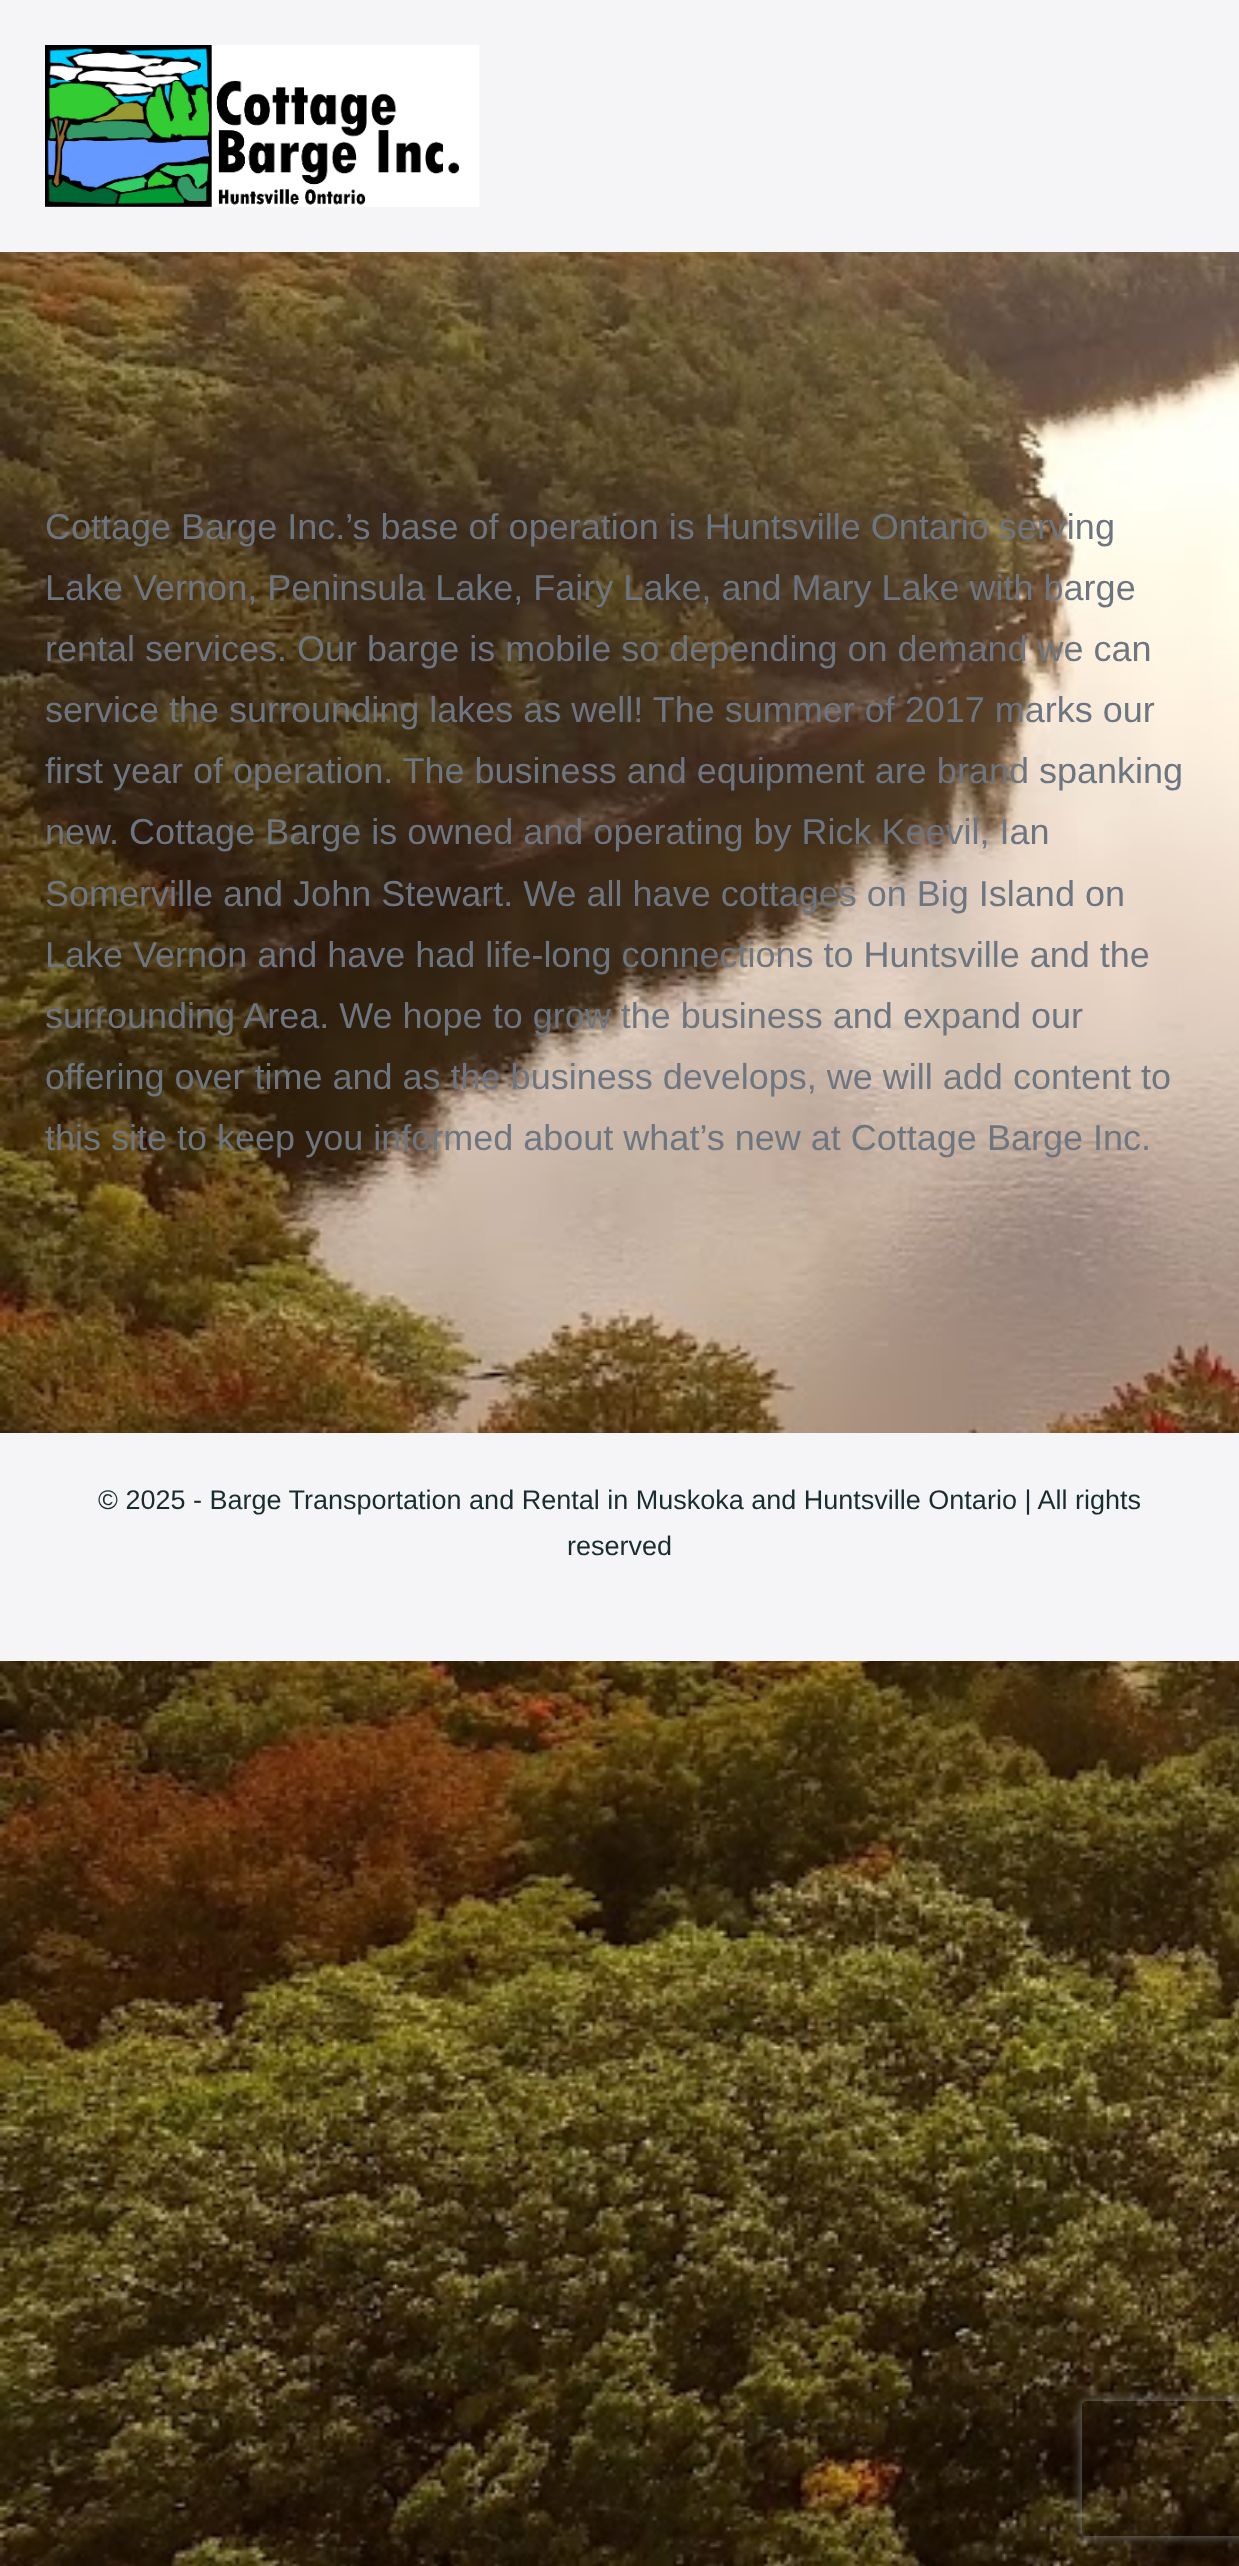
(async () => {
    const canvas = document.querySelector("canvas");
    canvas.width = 1239;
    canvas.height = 2566;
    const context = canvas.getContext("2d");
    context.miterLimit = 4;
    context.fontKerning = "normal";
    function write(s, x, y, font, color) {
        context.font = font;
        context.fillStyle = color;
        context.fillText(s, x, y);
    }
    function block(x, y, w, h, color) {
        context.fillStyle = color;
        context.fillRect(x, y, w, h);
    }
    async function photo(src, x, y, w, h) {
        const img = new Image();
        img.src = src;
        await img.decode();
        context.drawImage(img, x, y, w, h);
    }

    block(0, 0, 1239, 2566, "rgb(255, 255, 255)");
    await photo("media/1.png", 0, 252, 1239, 2314);
    block(0, 0, 1239, 252, "rgb(245, 245, 247)");
    await photo("media/2.png", 45, 45, 435, 162);
    write("Cottage Barge Inc.’s base of operation is Huntsville Ontario serving", 45, 539, "36px Liberation Sans", "rgb(109, 118, 128)");
    write("Lake Vernon, Peninsula Lake, Fairy Lake, and Mary Lake with barge", 45, 600, "36px Liberation Sans", "rgb(109, 118, 128)");
    write("rental services. Our barge is mobile so depending on demand we can", 45, 661, "36px Liberation Sans", "rgb(109, 118, 128)");
    write("service the surrounding lakes as well! The summer of 2017 marks our", 45, 722, "36px Liberation Sans", "rgb(109, 118, 128)");
    write("first year of operation. The business and equipment are brand spanking", 45, 783, "36px Liberation Sans", "rgb(109, 118, 128)");
    write("new. Cottage Barge is owned and operating by Rick Keevil, Ian", 45, 844, "36px Liberation Sans", "rgb(109, 118, 128)");
    write("Somerville and John Stewart. We all have cottages on Big Island on", 45, 906, "36px Liberation Sans", "rgb(109, 118, 128)");
    write("Lake Vernon and have had life-long connections to Huntsville and the", 45, 967, "36px Liberation Sans", "rgb(109, 118, 128)");
    write("surrounding Area. We hope to grow the business and expand our", 45, 1028, "36px Liberation Sans", "rgb(109, 118, 128)");
    write("offering over time and as the business develops, we will add content to", 45, 1089, "36px Liberation Sans", "rgb(109, 118, 128)");
    write("this site to keep you informed about what’s new at Cottage Barge Inc.", 45, 1150, "36px Liberation Sans", "rgb(109, 118, 128)");
    block(0, 1433, 1239, 228, "rgb(245, 245, 247)");
    write("© 2025 - Barge Transportation and Rental in Muskoka and Huntsville Ontario | All rights", 98, 1509, "27px Liberation Sans", "rgb(25, 44, 47)");
    write("reserved", 567, 1555, "27px Liberation Sans", "rgb(25, 44, 47)");
    context.save();
    context.beginPath();
    context.moveTo(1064, 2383);
    context.lineTo(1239, 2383);
    context.lineTo(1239, 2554);
    context.lineTo(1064, 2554);
    context.closePath();
    context.moveTo(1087, 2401);
    context.lineTo(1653, 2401);
    context.bezierCurveTo(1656, 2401, 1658, 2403, 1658, 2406);
    context.lineTo(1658, 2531);
    context.bezierCurveTo(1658, 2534, 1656, 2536, 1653, 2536);
    context.lineTo(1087, 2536);
    context.bezierCurveTo(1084, 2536, 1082, 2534, 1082, 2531);
    context.lineTo(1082, 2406);
    context.bezierCurveTo(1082, 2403, 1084, 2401, 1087, 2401);
    context.closePath();
    context.clip("evenodd");
    context.fillStyle = "rgb(128, 128, 128)";
    context.filter = "blur(5.5px)";
    context.beginPath();
    context.roundRect(1082, 2401, 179, 135, 5);
    context.fill();
    context.filter = "none";
    context.restore();
})();
